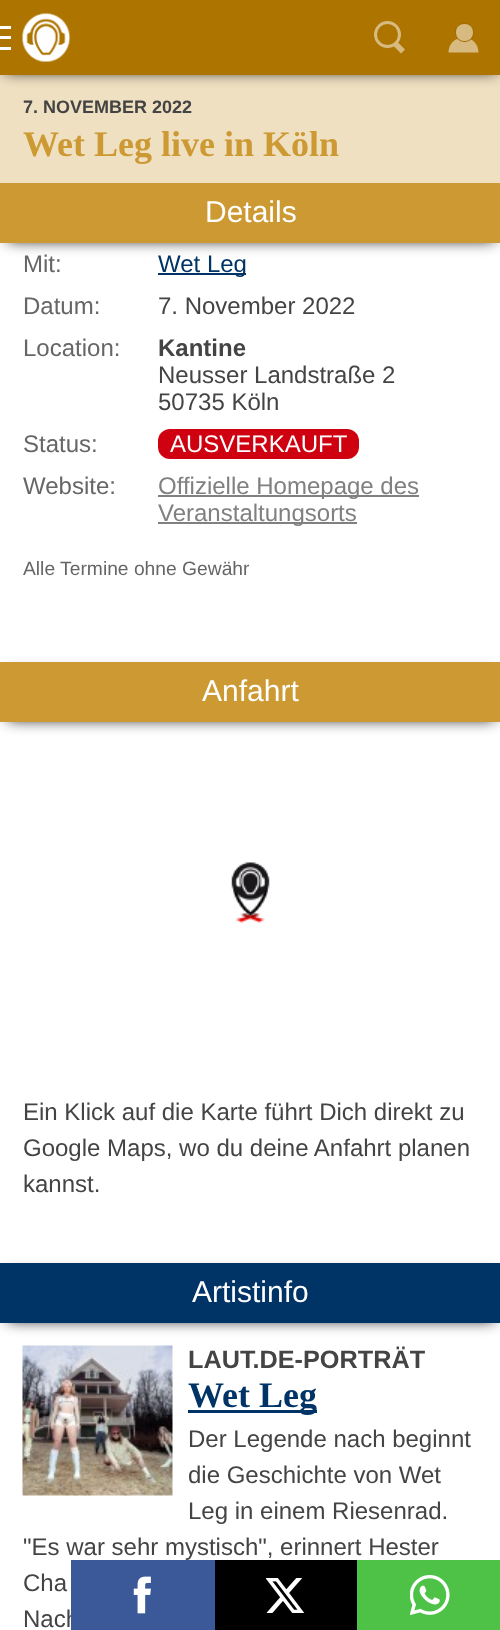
(async () => {
    const canvas = document.querySelector("canvas");
    canvas.width = 500;
    canvas.height = 1630;
    const context = canvas.getContext("2d");
    context.miterLimit = 4;
    context.fontKerning = "normal";
    function write(s, x, y, font, color) {
        context.font = font;
        context.fillStyle = color;
        context.fillText(s, x, y);
    }
    function block(x, y, w, h, color) {
        context.fillStyle = color;
        context.fillRect(x, y, w, h);
    }
    function card(x, y, w, h, r, color) {
        context.fillStyle = color;
        context.beginPath();
        context.roundRect(x, y, w, h, r);
        context.fill();
    }
    async function photo(src, x, y, w, h) {
        const img = new Image();
        img.src = src;
        await img.decode();
        context.drawImage(img, x, y, w, h);
    }

    block(0, 0, 500, 1630, "rgb(255, 255, 255)");
    block(0, 75, 500, 108, "rgb(240, 224, 194)");
    context.fillStyle = "rgb(0, 0, 0)";
    context.filter = "blur(7.5px)";
    context.beginPath();
    context.rect(5, 5, 492, 66);
    context.fill();
    context.filter = "none";
    block(0, 0, 500, 75, "rgb(174, 116, 0)");
    await photo("media/1.png", 22, 12, 49, 50);
    block(0, 26, 11, 3, "rgb(255, 255, 255)");
    block(0, 47, 11, 3, "rgb(255, 255, 255)");
    block(0, 36, 11, 3, "rgb(255, 255, 255)");
    context.fillStyle = "rgb(215, 186, 128)";
    context.beginPath();
    context.moveTo(405, 49.5);
    context.lineTo(401, 53.5);
    context.lineTo(392.5, 45);
    context.lineTo(396.5, 41);
    context.closePath();
    context.fill();
    context.beginPath();
    context.arc(387.5, 34.5, 12, 0, Math.PI * 2);
    context.strokeStyle = "rgb(215, 186, 128)";
    context.lineWidth = 3;
    context.stroke();
    context.beginPath();
    context.moveTo(463.5, 37.5);
    context.bezierCurveTo(472, 37.5, 478.5, 44, 478.5, 52.5);
    context.lineTo(448.5, 52.5);
    context.bezierCurveTo(448.5, 44, 455, 37.5, 463.5, 37.5);
    context.closePath();
    context.moveTo(463.5, 52.5);
    context.closePath();
    context.fill("evenodd");
    context.beginPath();
    context.roundRect(456, 24, 17, 17, 8);
    context.strokeStyle = "rgb(162, 108, 0)";
    context.lineWidth = 2;
    context.stroke();
    card(456, 24, 17, 17, 8, "rgb(215, 186, 128)");
    write("7. NOVEMBER 2022", 23, 113, "bold 18px Liberation Sans", "rgb(68, 68, 68)");
    write("Wet Leg live in Köln", 23, 156, "bold 36px Liberation Serif", "rgb(204, 153, 51)");
    context.save();
    context.beginPath();
    context.rect(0, 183, 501, 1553);
    context.clip();
    context.fillStyle = "rgb(0, 0, 0)";
    context.filter = "blur(7.5px)";
    context.beginPath();
    context.rect(8, 195, 486, 45);
    context.fill();
    context.filter = "none";
    context.restore();
    block(0, 183, 500, 60, "rgb(204, 153, 51)");
    write("Details", 205, 222, "30px Liberation Sans", "rgb(255, 255, 255)");
    write("Mit:", 23, 272, "24px Liberation Sans", "rgb(102, 102, 102)");
    block(158, 273, 88, 2, "rgb(0, 51, 102)");
    write("Wet Leg", 158, 272, "24px Liberation Sans", "rgb(0, 51, 102)");
    write("Datum:", 23, 314, "24px Liberation Sans", "rgb(102, 102, 102)");
    write("7. November 2022", 158, 314, "24px Liberation Sans", "rgb(68, 68, 68)");
    write("Location:", 23, 356, "24px Liberation Sans", "rgb(102, 102, 102)");
    write("Kantine", 158, 356, "bold 24px Liberation Sans", "rgb(68, 68, 68)");
    write("Neusser Landstraße 2", 158, 383, "24px Liberation Sans", "rgb(68, 68, 68)");
    write("50735 Köln", 158, 410, "24px Liberation Sans", "rgb(68, 68, 68)");
    write("Status:", 23, 452, "24px Liberation Sans", "rgb(102, 102, 102)");
    card(158, 429, 201, 30, 12, "rgb(207, 0, 15)");
    write("AUSVERKAUFT", 170, 452, "24px Liberation Sans", "rgb(255, 255, 255)");
    write("Website:", 23, 494, "24px Liberation Sans", "rgb(102, 102, 102)");
    block(158, 495, 261, 2, "rgb(128, 128, 128)");
    write("Offizielle Homepage des", 158, 494, "24px Liberation Sans", "rgb(128, 128, 128)");
    block(158, 522, 199, 2, "rgb(128, 128, 128)");
    write("Veranstaltungsorts", 158, 521, "24px Liberation Sans", "rgb(128, 128, 128)");
    write("Alle Termine ohne Gewähr", 23, 575, "19.25px Liberation Sans", "rgb(102, 102, 102)");
    context.fillStyle = "rgb(0, 0, 0)";
    context.filter = "blur(7.5px)";
    context.beginPath();
    context.rect(8, 674, 486, 45);
    context.fill();
    context.filter = "none";
    block(0, 662, 500, 60, "rgb(204, 153, 51)");
    write("Anfahrt", 202, 701, "30px Liberation Sans", "rgb(255, 255, 255)");
    await photo("media/2.png", 231, 862, 39, 61);
    write("Ein Klick auf die Karte führt Dich direkt zu", 23, 1120, "24px Liberation Sans", "rgb(68, 68, 68)");
    write("Google Maps, wo du deine Anfahrt planen", 23, 1156, "24px Liberation Sans", "rgb(68, 68, 68)");
    write("kannst.", 23, 1192, "24px Liberation Sans", "rgb(68, 68, 68)");
    context.fillStyle = "rgb(0, 0, 0)";
    context.filter = "blur(7.5px)";
    context.beginPath();
    context.rect(8, 1275, 486, 45);
    context.fill();
    context.filter = "none";
    block(0, 1263, 500, 60, "rgb(0, 51, 102)");
    write("Artistinfo", 192, 1302, "30px Liberation Sans", "rgb(255, 255, 255)");
    await photo("media/3.png", 22, 1345, 151, 151);
    write("LAUT.DE-PORTRÄT", 188, 1368, "bold 25.25px Liberation Sans", "rgb(68, 68, 68)");
    block(188, 1410, 129, 3, "rgb(0, 51, 102)");
    write("Wet Leg", 188, 1407, "bold 36px Liberation Serif", "rgb(0, 51, 102)");
    write("Der Legende nach beginnt", 188, 1447, "24px Liberation Sans", "rgb(68, 68, 68)");
    write("die Geschichte von Wet", 188, 1483, "24px Liberation Sans", "rgb(68, 68, 68)");
    write("Leg in einem Riesenrad.", 188, 1519, "24px Liberation Sans", "rgb(68, 68, 68)");
    write("\"Es war sehr mystisch\", erinnert Hester", 23, 1555, "24px Liberation Sans", "rgb(68, 68, 68)");
    write("Cha", 23, 1591, "24px Liberation Sans", "rgb(68, 68, 68)");
    write("Nach", 23, 1627, "24px Liberation Sans", "rgb(68, 68, 68)");
    block(71, 1560, 144, 70, "rgb(59, 89, 152)");
    await photo("media/4.png", 133, 1576, 18, 38);
    block(215, 1560, 142, 70, "rgb(0, 0, 0)");
    await photo("media/5.png", 266, 1578, 39, 35);
    block(357, 1560, 143, 70, "rgb(77, 194, 71)");
    await photo("media/6.png", 410, 1575, 40, 40);
})();
